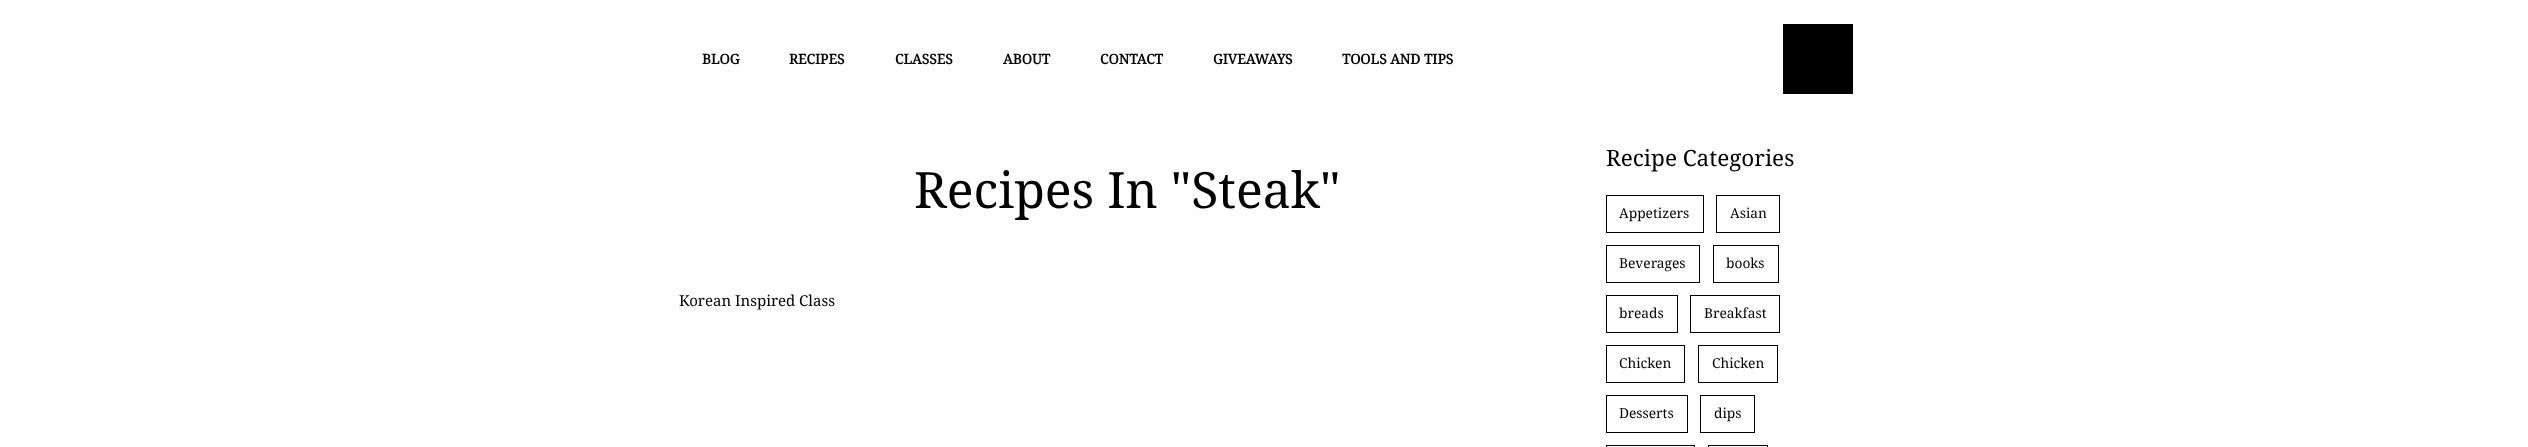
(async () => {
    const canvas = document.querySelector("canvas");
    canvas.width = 2528;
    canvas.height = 447;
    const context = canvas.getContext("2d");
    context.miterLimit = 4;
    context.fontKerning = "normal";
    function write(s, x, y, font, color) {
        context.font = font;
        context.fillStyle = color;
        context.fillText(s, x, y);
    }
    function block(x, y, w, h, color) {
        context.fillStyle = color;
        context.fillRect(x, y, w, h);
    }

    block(0, 0, 2528, 447, "rgb(255, 255, 255)");
    write("BLOG", 702, 64, "bold 13.75px Droid Serif", "rgb(0, 0, 0)");
    write("RECIPES", 789, 64, "bold 13.75px Droid Serif", "rgb(0, 0, 0)");
    write("CLASSES", 895, 64, "bold 13.75px Droid Serif", "rgb(0, 0, 0)");
    write("ABOUT", 1003, 64, "bold 13.75px Droid Serif", "rgb(0, 0, 0)");
    write("CONTACT", 1100, 64, "bold 13.75px Droid Serif", "rgb(0, 0, 0)");
    write("GIVEAWAYS", 1213, 64, "bold 13.75px Droid Serif", "rgb(0, 0, 0)");
    write("TOOLS AND TIPS", 1342, 64, "bold 13.75px Droid Serif", "rgb(0, 0, 0)");
    block(1783, 24, 70, 70, "rgb(0, 0, 0)");
    write("Recipes In \"Steak\"", 914, 208, "50px Droid Serif", "rgb(0, 0, 0)");
    write("Korean Inspired Class", 679, 306, "15px Droid Serif", "rgb(0, 0, 0)");
    write("Recipe Categories", 1606, 166, "22.5px Droid Serif", "rgb(0, 0, 0)");
    context.strokeStyle = "rgb(0, 0, 0)";
    context.strokeRect(1606.5, 195.5, 97, 37);
    write("Appetizers", 1619, 218, "13.75px Droid Serif", "rgb(0, 0, 0)");
    context.strokeRect(1716.5, 195.5, 63, 37);
    write("Asian", 1730, 218, "13.75px Droid Serif", "rgb(0, 0, 0)");
    context.strokeRect(1606.5, 245.5, 93, 37);
    write("Beverages", 1619, 268, "13.75px Droid Serif", "rgb(0, 0, 0)");
    context.strokeRect(1713.5, 245.5, 65, 37);
    write("books", 1726, 268, "13.75px Droid Serif", "rgb(0, 0, 0)");
    context.strokeRect(1606.5, 295.5, 71, 37);
    write("breads", 1619, 318, "13.75px Droid Serif", "rgb(0, 0, 0)");
    context.strokeRect(1690.5, 295.5, 89, 37);
    write("Breakfast", 1704, 318, "13.75px Droid Serif", "rgb(0, 0, 0)");
    context.strokeRect(1606.5, 345.5, 78, 37);
    write("Chicken", 1619, 368, "13.75px Droid Serif", "rgb(0, 0, 0)");
    context.strokeRect(1698.5, 345.5, 79, 37);
    write("Chicken", 1712, 368, "13.75px Droid Serif", "rgb(0, 0, 0)");
    context.strokeRect(1606.5, 395.5, 81, 37);
    write("Desserts", 1619, 418, "13.75px Droid Serif", "rgb(0, 0, 0)");
    context.strokeRect(1700.5, 395.5, 54, 37);
    write("dips", 1714, 418, "13.75px Droid Serif", "rgb(0, 0, 0)");
    context.strokeRect(1606.5, 445.5, 88, 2);
    context.strokeRect(1708.5, 445.5, 59, 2);
})();
